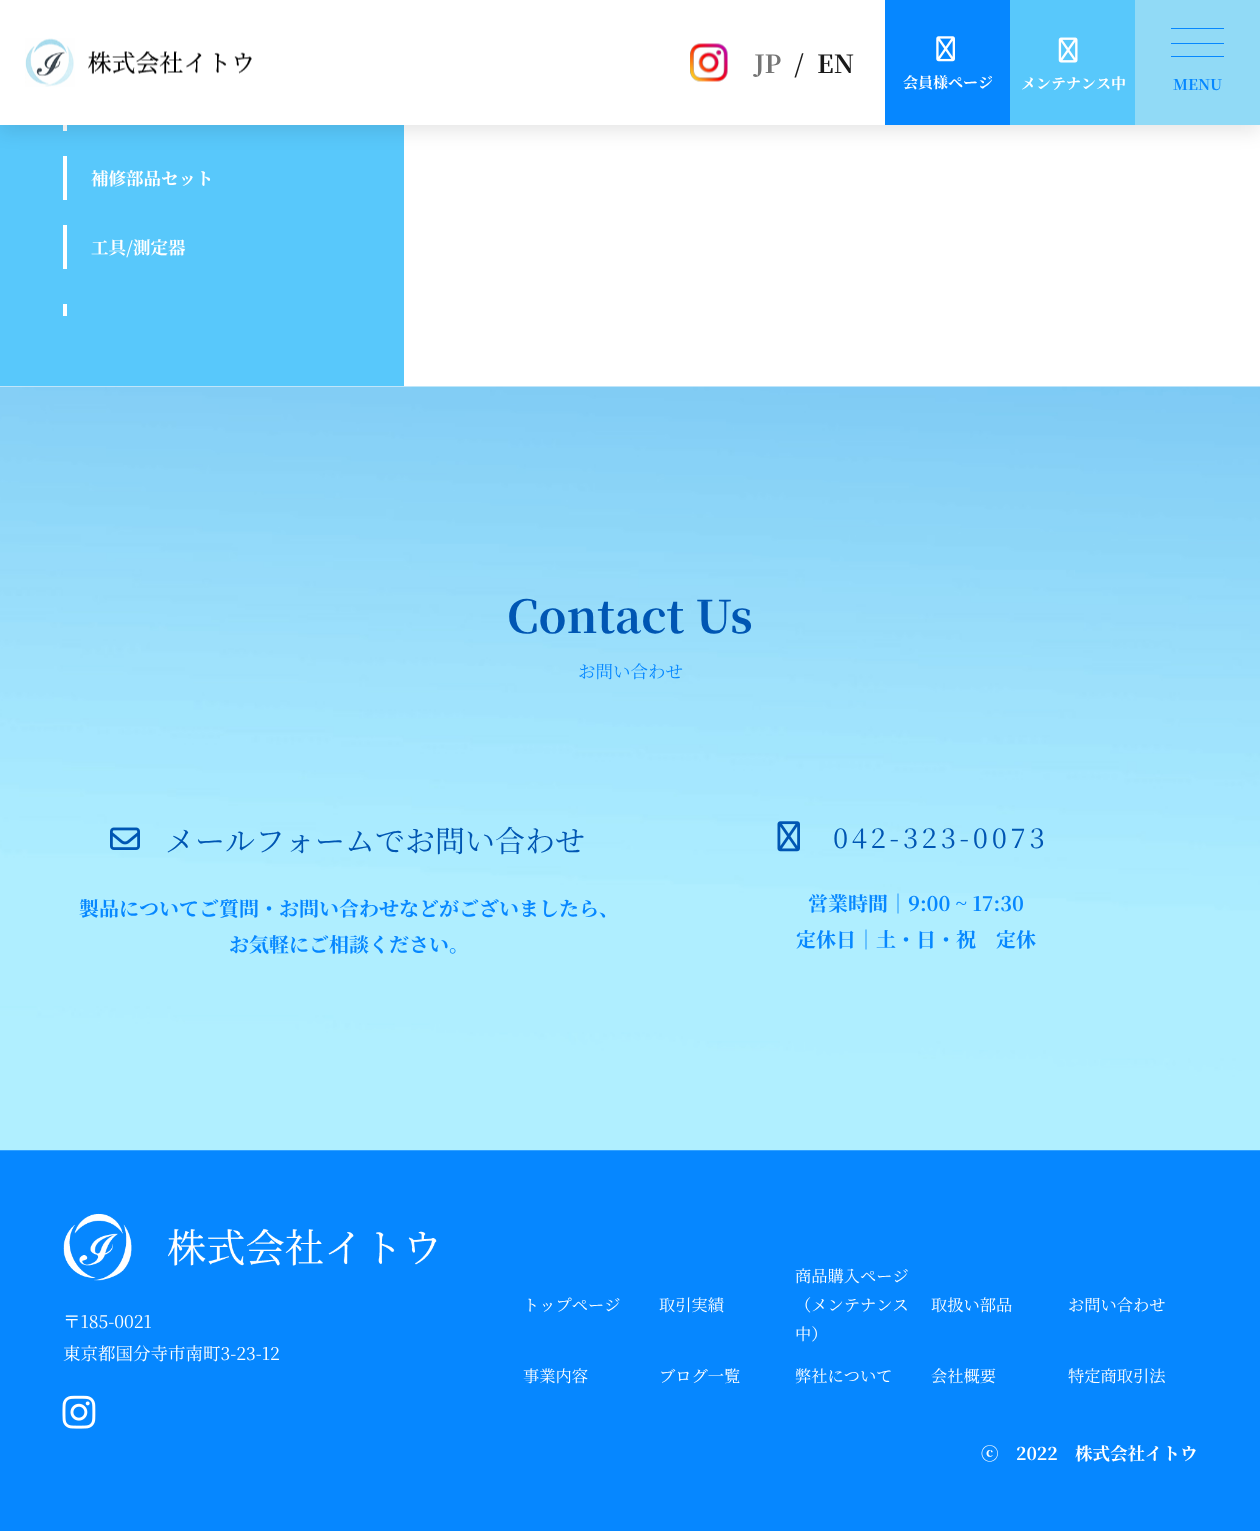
(async () => {
    const canvas = document.querySelector("canvas");
    canvas.width = 1260;
    canvas.height = 1531;
    const context = canvas.getContext("2d");
    context.miterLimit = 4;
    context.fontKerning = "normal";
    function write(s, x, y, font, color) {
        context.font = font;
        context.fillStyle = color;
        context.fillText(s, x, y);
    }
    function block(x, y, w, h, color) {
        context.fillStyle = color;
        context.fillRect(x, y, w, h);
    }
    async function photo(src, x, y, w, h) {
        const img = new Image();
        img.src = src;
        await img.decode();
        context.drawImage(img, x, y, w, h);
    }

    block(0, 0, 1260, 1531, "rgb(255, 255, 255)");
    block(0, 125, 404, 261, "rgb(88, 200, 251)");
    block(63, 125, 4, 6, "rgb(255, 255, 255)");
    block(63, 156, 4, 44, "rgb(255, 255, 255)");
    context.fillStyle = "rgba(0, 0, 0, 0.1)";
    context.filter = "blur(9.5px)";
    context.beginPath();
    context.rect(0, 6, 1260, 125);
    context.fill();
    context.filter = "none";
    block(0, 0, 885, 125, "rgb(255, 255, 255)");
    await photo("media/1.png", 25, 38, 227, 49);
    await photo("media/2.png", 690, 43, 38, 39);
    write("JP", 754, 73, "bold 25px Noto Serif JP", "rgb(117, 117, 117)");
    write("/", 794, 73, "bold 25px Noto Serif JP", "rgb(25, 25, 25)");
    write("EN", 817, 73, "bold 25px Noto Serif JP", "rgb(25, 25, 25)");
    block(885, 0, 125, 125, "rgb(6, 135, 255)");
    await photo("media/3.png", 936, 36, 19, 26);
    write("会員様ページ", 903, 88, "bold 15px Noto Serif JP", "rgb(255, 255, 255)");
    block(1010, 0, 125, 125, "rgb(88, 200, 251)");
    await photo("media/4.png", 1058, 37, 20, 26);
    write("メンテナンス中", 1021, 89, "bold 15px Noto Serif JP", "rgb(255, 255, 255)");
    block(1135, 0, 125, 125, "rgb(145, 218, 246)");
    block(1171, 28, 53, 1, "rgb(6, 135, 255)");
    block(1171, 43, 53, 1, "rgb(6, 135, 255)");
    block(1171, 56, 53, 1, "rgb(6, 135, 255)");
    write("MENU", 1173, 90, "bold 15px Noto Serif JP", "rgb(6, 135, 255)");
    write("補修部品セット", 91, 185, "bold 17.5px Noto Serif JP", "rgb(255, 255, 255)");
    block(63, 225, 4, 44, "rgb(255, 255, 255)");
    write("工具/測定器", 91, 254, "bold 17.5px Noto Serif JP", "rgb(255, 255, 255)");
    block(63, 304, 4, 12, "rgb(255, 255, 255)");
    block(0, 1150, 1260, 381, "rgb(6, 135, 255)");
    await photo("media/5.png", 0, 386, 1260, 765);
    write("Contact Us", 507, 633, "bold 45px Noto Serif JP", "rgb(0, 86, 179)");
    write("お問い合わせ", 578, 678, "17.5px Noto Serif JP", "rgb(6, 135, 255)");
    await photo("media/6.png", 110, 827, 30, 23);
    write("メールフォームでお問い合わせ", 165, 852, "30px Noto Serif JP", "rgb(0, 86, 179)");
    write("製品についてご質問・お問い合わせなどがございましたら、", 79, 916, "bold 20px Noto Serif JP", "rgb(6, 135, 255)");
    write("お気軽にご相談ください。", 229, 952, "bold 20px Noto Serif JP", "rgb(6, 135, 255)");
    await photo("media/7.png", 777, 821, 23, 31);
    context.letterSpacing = "3.75px";
    write("042-323-0073", 833, 848, "27.5px Noto Serif JP", "rgb(0, 86, 179)");
    context.letterSpacing = "0px";
    write("営業時間｜9:00 ~ 17:30", 808, 911, "bold 20px Noto Serif JP", "rgb(6, 135, 255)");
    write("定休日｜土・日・祝　定休", 796, 947, "bold 20px Noto Serif JP", "rgb(6, 135, 255)");
    await photo("media/8.png", 63, 1213, 374, 68);
    write("〒185-0021", 63, 1328, "17.5px Noto Serif JP", "rgb(255, 255, 255)");
    write("東京都国分寺市南町3-23-12", 63, 1360, "17.5px Noto Serif JP", "rgb(255, 255, 255)");
    await photo("media/9.png", 62, 1395, 34, 34);
    write("トップページ", 523, 1311, "16.25px Noto Serif JP", "rgb(255, 255, 255)");
    write("取引実績", 659, 1311, "16.25px Noto Serif JP", "rgb(255, 255, 255)");
    write("商品購入ページ", 795, 1282, "16.25px Noto Serif JP", "rgb(255, 255, 255)");
    write("（メンテナンス", 795, 1311, "16.25px Noto Serif JP", "rgb(255, 255, 255)");
    write("中）", 795, 1340, "16.25px Noto Serif JP", "rgb(255, 255, 255)");
    write("取扱い部品", 931, 1311, "16.25px Noto Serif JP", "rgb(255, 255, 255)");
    write("お問い合わせ", 1068, 1311, "16.25px Noto Serif JP", "rgb(255, 255, 255)");
    write("事業内容", 523, 1382, "16.25px Noto Serif JP", "rgb(255, 255, 255)");
    write("ブログ一覧", 659, 1382, "16.25px Noto Serif JP", "rgb(255, 255, 255)");
    write("弊社について", 795, 1382, "16.25px Noto Serif JP", "rgb(255, 255, 255)");
    write("会社概要", 931, 1382, "16.25px Noto Serif JP", "rgb(255, 255, 255)");
    write("特定商取引法", 1068, 1382, "16.25px Noto Serif JP", "rgb(255, 255, 255)");
    write("ⓒ　2022　株式会社イトウ", 981, 1460, "bold 17.5px Noto Serif JP", "rgb(255, 255, 255)");
})();
